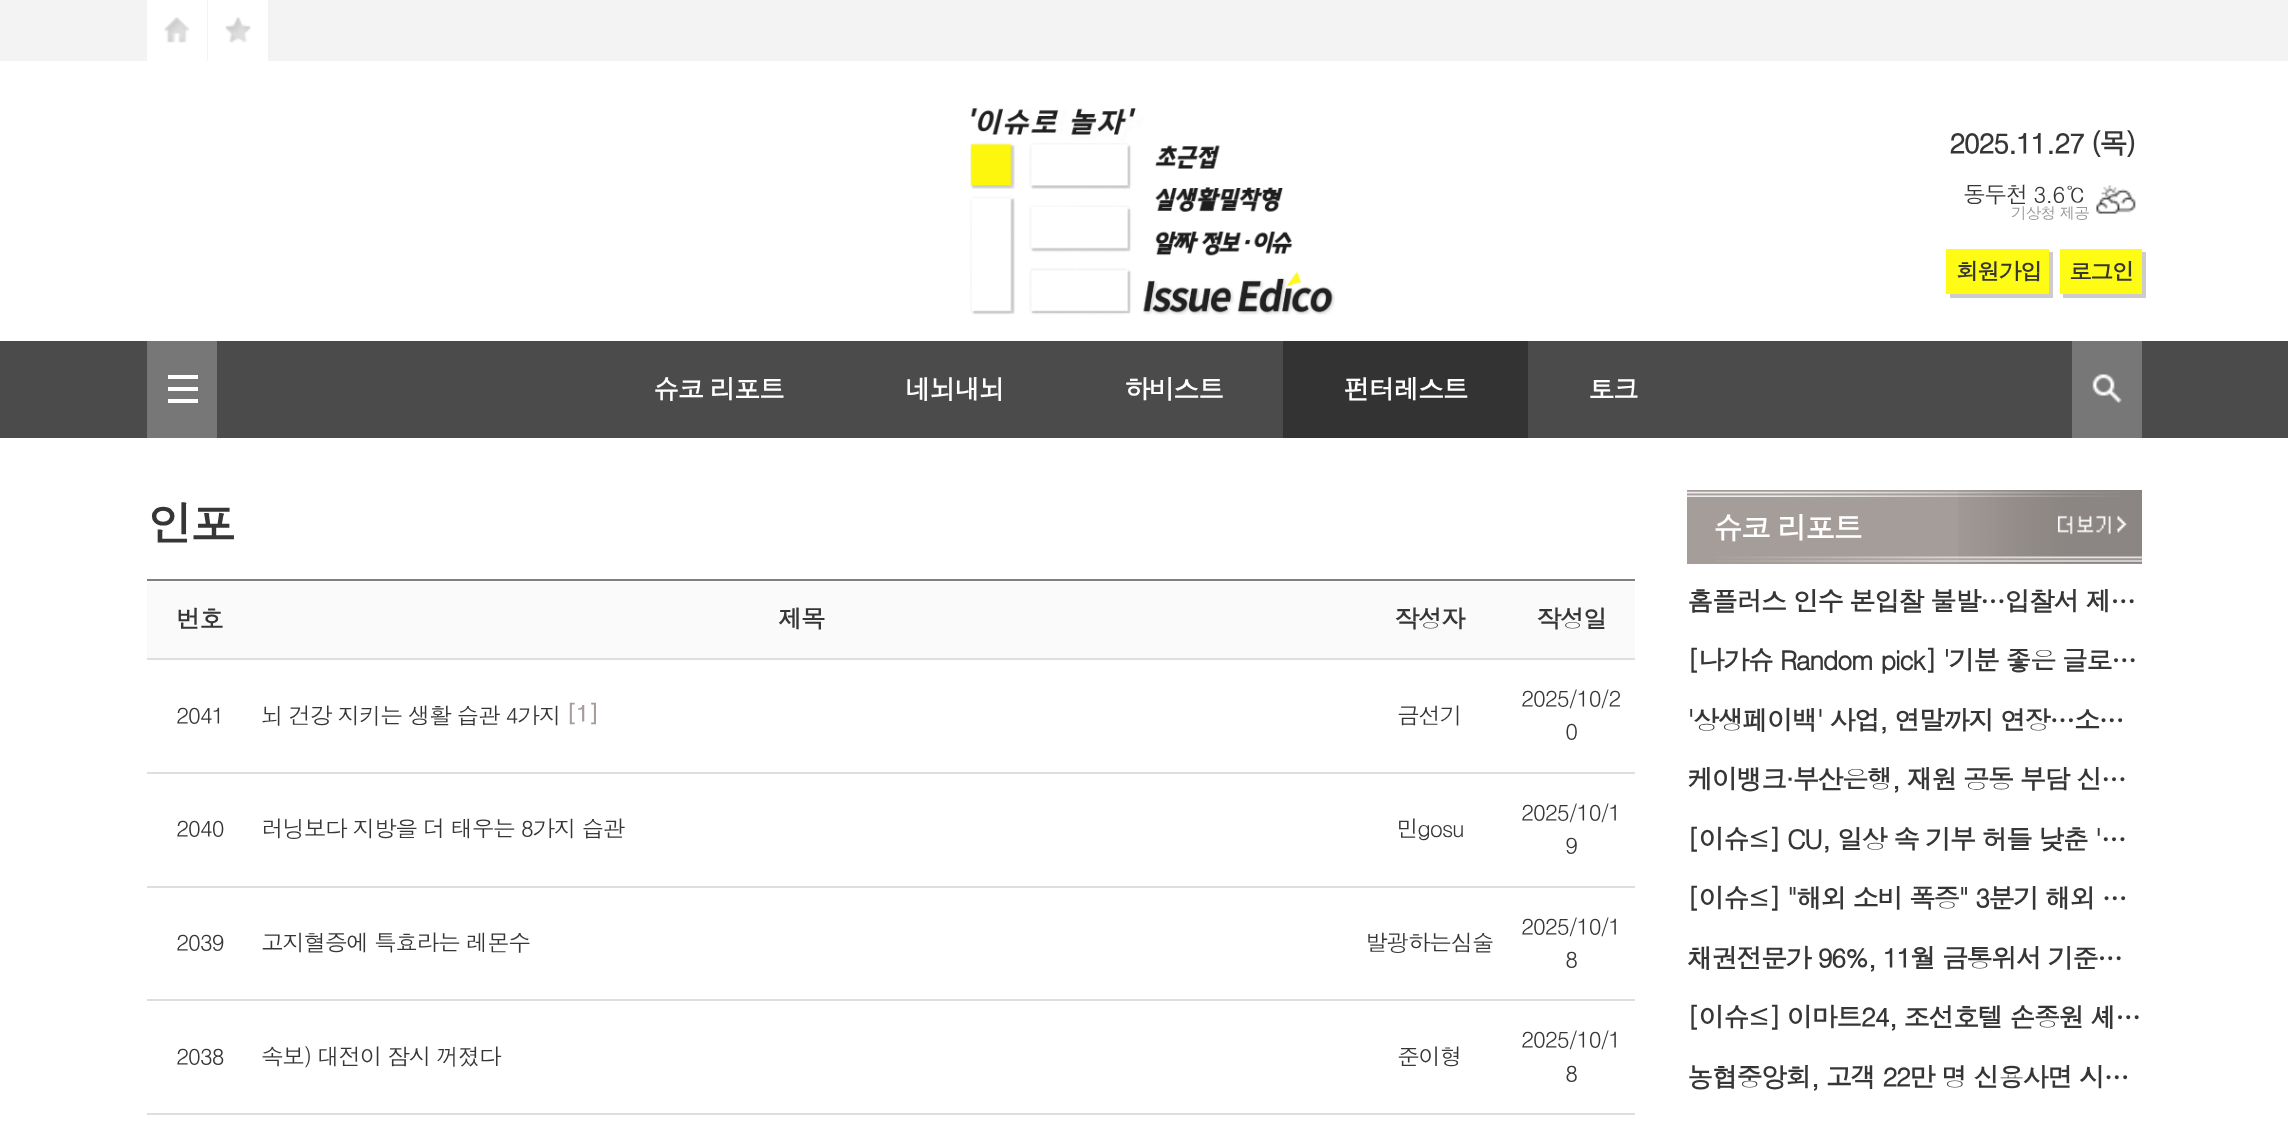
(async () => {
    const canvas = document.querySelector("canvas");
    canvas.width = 2288;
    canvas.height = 1141;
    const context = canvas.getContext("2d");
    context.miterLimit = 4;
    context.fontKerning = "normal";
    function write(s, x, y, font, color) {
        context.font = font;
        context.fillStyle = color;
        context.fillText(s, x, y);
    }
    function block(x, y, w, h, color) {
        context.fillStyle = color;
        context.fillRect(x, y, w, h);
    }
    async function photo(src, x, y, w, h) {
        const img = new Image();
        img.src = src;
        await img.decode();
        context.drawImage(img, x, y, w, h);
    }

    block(0, 0, 2288, 1141, "rgb(255, 255, 255)");
    block(0, 0, 2288, 61, "rgb(243, 243, 243)");
    block(147, 0, 60, 61, "rgb(255, 255, 255)");
    await photo("media/1.png", 164, 17, 26, 26);
    block(208, 0, 60, 61, "rgb(255, 255, 255)");
    await photo("media/2.png", 225, 17, 26, 26);
    await photo("media/3.png", 970, 108, 365, 207);
    context.letterSpacing = "-1.75px";
    write("2025.11.27 (목)", 1949, 154, "bold 28px Dotum", "rgb(54, 54, 54)");
    context.letterSpacing = "-1.4px";
    write("동두천 3.6℃", 1963, 203, "22.75px Dotum", "rgb(54, 54, 54)");
    await photo("media/4.png", 2096, 185, 40, 29);
    context.letterSpacing = "-1px";
    write("기상청 제공", 2011, 219, "15.75px Dotum", "rgb(153, 153, 153)");
    context.fillStyle = "rgb(204, 204, 204)";
    context.beginPath();
    context.moveTo(1950, 294);
    context.lineTo(1950, 298);
    context.lineTo(2053, 298);
    context.lineTo(2053, 252);
    context.lineTo(2049, 252);
    context.lineTo(2049, 294);
    context.closePath();
    context.fill();
    block(1946, 249, 103, 45, "rgb(254, 252, 21)");
    context.letterSpacing = "-1.4px";
    write("회원가입", 1956, 280, "bold 22.75px Dotum", "rgb(54, 54, 54)");
    context.fillStyle = "rgb(204, 204, 204)";
    context.beginPath();
    context.moveTo(2063, 294);
    context.lineTo(2063, 298);
    context.lineTo(2146, 298);
    context.lineTo(2146, 252);
    context.lineTo(2142, 252);
    context.lineTo(2142, 294);
    context.closePath();
    context.fill();
    block(2060, 249, 82, 45, "rgb(254, 252, 21)");
    write("로그인", 2069, 280, "bold 22.75px Dotum", "rgb(54, 54, 54)");
    block(0, 341, 2288, 97, "rgb(75, 75, 75)");
    block(147, 341, 70, 97, "rgb(119, 119, 119)");
    block(168, 387, 30, 4, "rgb(255, 255, 255)");
    block(168, 375, 30, 4, "rgb(255, 255, 255)");
    block(168, 399, 30, 4, "rgb(255, 255, 255)");
    context.letterSpacing = "-1.6px";
    write("슈코 리포트", 653, 399, "bold 26.25px Dotum", "rgb(255, 255, 255)");
    write("네뇌내뇌", 905, 399, "bold 26.25px Dotum", "rgb(255, 255, 255)");
    write("하비스트", 1124, 399, "bold 26.25px Dotum", "rgb(255, 255, 255)");
    block(1283, 341, 245, 97, "rgb(51, 51, 51)");
    write("펀터레스트", 1344, 399, "bold 26.25px Dotum", "rgb(255, 255, 255)");
    write("토크", 1588, 399, "bold 26.25px Dotum", "rgb(255, 255, 255)");
    block(2072, 341, 70, 97, "rgb(119, 119, 119)");
    await photo("media/5.png", 2092, 374, 30, 29);
    context.letterSpacing = "-3px";
    write("인포", 147, 541, "bold 46px Dotum", "rgb(54, 54, 54)");
    block(147, 579, 1488, 2, "rgb(128, 128, 128)");
    block(147, 581, 1488, 77, "rgb(250, 250, 250)");
    context.letterSpacing = "-1.5px";
    write("번호", 176, 628, "bold 24.5px Dotum", "rgb(54, 54, 54)");
    write("제목", 778, 628, "bold 24.5px Dotum", "rgb(54, 54, 54)");
    write("작성자", 1395, 628, "bold 24.5px Dotum", "rgb(54, 54, 54)");
    block(147, 658, 1488, 2, "rgb(222, 222, 222)");
    write("작성일", 1537, 628, "bold 24.5px Dotum", "rgb(54, 54, 54)");
    context.letterSpacing = "-1.4px";
    write("2041", 176, 724, "22.75px Dotum", "rgb(54, 54, 54)");
    write("뇌 건강 지키는 생활 습관 4가지", 261, 724, "22.75px Dotum", "rgb(54, 54, 54)");
    write("[1]", 566, 722, "bold 22.75px Dotum", "rgb(164, 157, 154)");
    write("금선기", 1397, 724, "22.75px Dotum", "rgb(54, 54, 54)");
    block(147, 772, 1488, 2, "rgb(222, 222, 222)");
    write("2025/10/2", 1521, 707, "22.75px Dotum", "rgb(54, 54, 54)");
    write("0", 1565, 740, "22.75px Dotum", "rgb(54, 54, 54)");
    write("2040", 176, 837, "22.75px Dotum", "rgb(54, 54, 54)");
    write("러닝보다 지방을 더 태우는 8가지 습관", 261, 837, "22.75px Dotum", "rgb(54, 54, 54)");
    write("민gosu", 1396, 837, "22.75px Dotum", "rgb(54, 54, 54)");
    block(147, 886, 1488, 2, "rgb(222, 222, 222)");
    write("2025/10/1", 1521, 821, "22.75px Dotum", "rgb(54, 54, 54)");
    write("9", 1565, 854, "22.75px Dotum", "rgb(54, 54, 54)");
    write("2039", 176, 951, "22.75px Dotum", "rgb(54, 54, 54)");
    write("고지혈증에 특효라는 레몬수", 261, 951, "22.75px Dotum", "rgb(54, 54, 54)");
    write("발광하는심술", 1365, 951, "22.75px Dotum", "rgb(54, 54, 54)");
    block(147, 999, 1488, 2, "rgb(222, 222, 222)");
    write("2025/10/1", 1521, 935, "22.75px Dotum", "rgb(54, 54, 54)");
    write("8", 1565, 968, "22.75px Dotum", "rgb(54, 54, 54)");
    write("2038", 176, 1065, "22.75px Dotum", "rgb(54, 54, 54)");
    write("속보) 대전이 잠시 꺼졌다", 261, 1065, "22.75px Dotum", "rgb(54, 54, 54)");
    write("준이형", 1397, 1065, "22.75px Dotum", "rgb(54, 54, 54)");
    block(147, 1113, 1488, 2, "rgb(222, 222, 222)");
    write("2025/10/1", 1521, 1048, "22.75px Dotum", "rgb(54, 54, 54)");
    write("8", 1565, 1082, "22.75px Dotum", "rgb(54, 54, 54)");
    block(1687, 490, 455, 74, "rgb(164, 157, 154)");
    await photo("media/6.png", 1958, 490, 184, 74);
    await photo("media/7.png", 1687, 491, 433, 6);
    context.letterSpacing = "-1.75px";
    write("슈코 리포트", 1713, 539, "bold 29.75px Dotum", "rgb(255, 255, 255)");
    await photo("media/8.png", 2058, 515, 69, 20);
    await photo("media/9.png", 1716, 556, 426, 6);
    context.letterSpacing = "-1.6px";
    write("홈플러스 인수 본입찰 불발…입찰서 제…", 1687, 611, "bold 26.25px Dotum", "rgb(54, 54, 54)");
    write("[나가슈 Random pick] '기분 좋은 글로…", 1687, 670, "bold 26.25px Dotum", "rgb(54, 54, 54)");
    write("'상생페이백' 사업, 연말까지 연장…소…", 1687, 730, "bold 26.25px Dotum", "rgb(54, 54, 54)");
    write("케이뱅크·부산은행, 재원 공동 부담 신…", 1687, 789, "bold 26.25px Dotum", "rgb(54, 54, 54)");
    write("[이슈≤] CU, 일상 속 기부 허들 낮춘 '…", 1687, 849, "bold 26.25px Dotum", "rgb(54, 54, 54)");
    write("[이슈≤] \"해외 소비 폭증\" 3분기 해외 …", 1687, 908, "bold 26.25px Dotum", "rgb(54, 54, 54)");
    write("채권전문가 96%, 11월 금통위서 기준…", 1687, 968, "bold 26.25px Dotum", "rgb(54, 54, 54)");
    write("[이슈≤] 이마트24, 조선호텔 손종원 셰…", 1687, 1027, "bold 26.25px Dotum", "rgb(54, 54, 54)");
    write("농협중앙회, 고객 22만 명 신용사면 시…", 1687, 1087, "bold 26.25px Dotum", "rgb(54, 54, 54)");
})();
